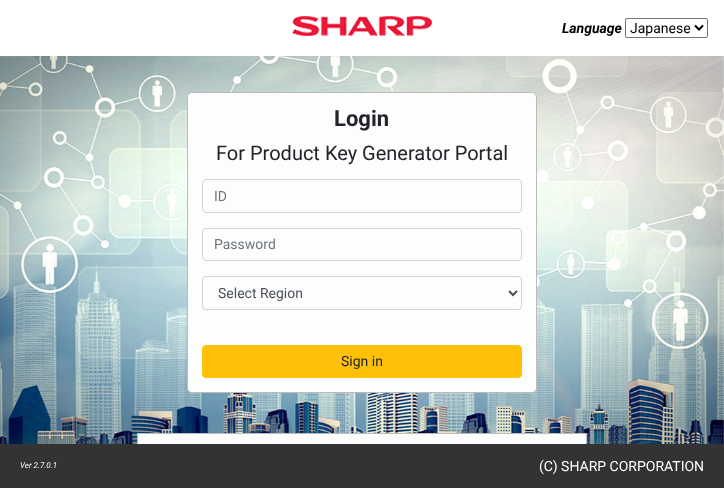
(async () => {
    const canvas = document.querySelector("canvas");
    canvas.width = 724;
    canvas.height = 488;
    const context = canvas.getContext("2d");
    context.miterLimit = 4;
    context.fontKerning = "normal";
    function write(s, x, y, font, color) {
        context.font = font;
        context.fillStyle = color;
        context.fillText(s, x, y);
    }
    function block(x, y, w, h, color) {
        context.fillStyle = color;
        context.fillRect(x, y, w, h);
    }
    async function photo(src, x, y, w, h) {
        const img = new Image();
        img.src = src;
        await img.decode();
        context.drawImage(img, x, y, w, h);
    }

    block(0, 0, 724, 488, "rgb(255, 255, 255)");
    await photo("media/1.png", 0, 56, 724, 388);
    await photo("media/2.png", 292, 16, 140, 20);
    write("Language", 562, 33, "italic bold 14px Roboto", "rgb(0, 0, 0)");
    context.beginPath();
    context.roundRect(625.5, 18.5, 82, 19, 1.5);
    context.strokeStyle = "rgb(118, 118, 118)";
    context.stroke();
    context.beginPath();
    context.moveTo(695, 25.5);
    context.lineTo(699, 29.5);
    context.lineTo(703, 25.5);
    context.strokeStyle = "rgb(0, 0, 0)";
    context.lineWidth = 2;
    context.stroke();
    write("Japanese", 630, 33, "14px Roboto", "rgb(0, 0, 0)");
    context.fillStyle = "rgb(253, 253, 253)";
    context.beginPath();
    context.roundRect(187.5, 92.5, 349, 300, 4.5);
    context.fill();
    context.strokeStyle = "rgb(187, 187, 187)";
    context.lineWidth = 1;
    context.stroke();
    write("Login", 334, 126, "bold 22px Roboto", "rgb(33, 37, 41)");
    write("For Product Key Generator Portal", 216, 160, "20px Roboto", "rgb(33, 37, 41)");
    context.beginPath();
    context.roundRect(202.5, 179.5, 319, 33, 3.5);
    context.strokeStyle = "rgb(206, 212, 218)";
    context.stroke();
    write("ID", 214, 201, "14px Roboto", "rgb(108, 117, 125)");
    context.beginPath();
    context.roundRect(202.5, 228.5, 319, 32, 3.5);
    context.stroke();
    write("Password", 214, 249, "14px Roboto", "rgb(108, 117, 125)");
    context.beginPath();
    context.roundRect(202.5, 276.5, 319, 33, 3.5);
    context.stroke();
    context.beginPath();
    context.moveTo(509, 291);
    context.lineTo(513, 295);
    context.lineTo(517, 291);
    context.strokeStyle = "rgb(73, 80, 87)";
    context.lineWidth = 2;
    context.stroke();
    write("Select Region", 218, 298, "14px Roboto", "rgb(73, 80, 87)");
    context.fillStyle = "rgb(255, 193, 7)";
    context.beginPath();
    context.roundRect(202.5, 345.5, 319, 32, 3.5);
    context.fill();
    context.strokeStyle = "rgb(255, 193, 7)";
    context.lineWidth = 1;
    context.stroke();
    write("Sign in", 341, 366, "14px Roboto", "rgb(33, 37, 41)");
    block(138, 434, 448, 10, "rgb(253, 253, 253)");
    context.strokeStyle = "rgb(187, 187, 187)";
    context.strokeRect(137.5, 433.5, 449, 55);
    block(0, 444, 724, 44, "rgb(51, 51, 51)");
    write("Ver 2.7.0.1", 20, 468, "italic 8px Roboto", "rgb(255, 255, 255)");
    write("(C) SHARP CORPORATION", 539, 471, "14px Roboto", "rgb(255, 255, 255)");
})();
